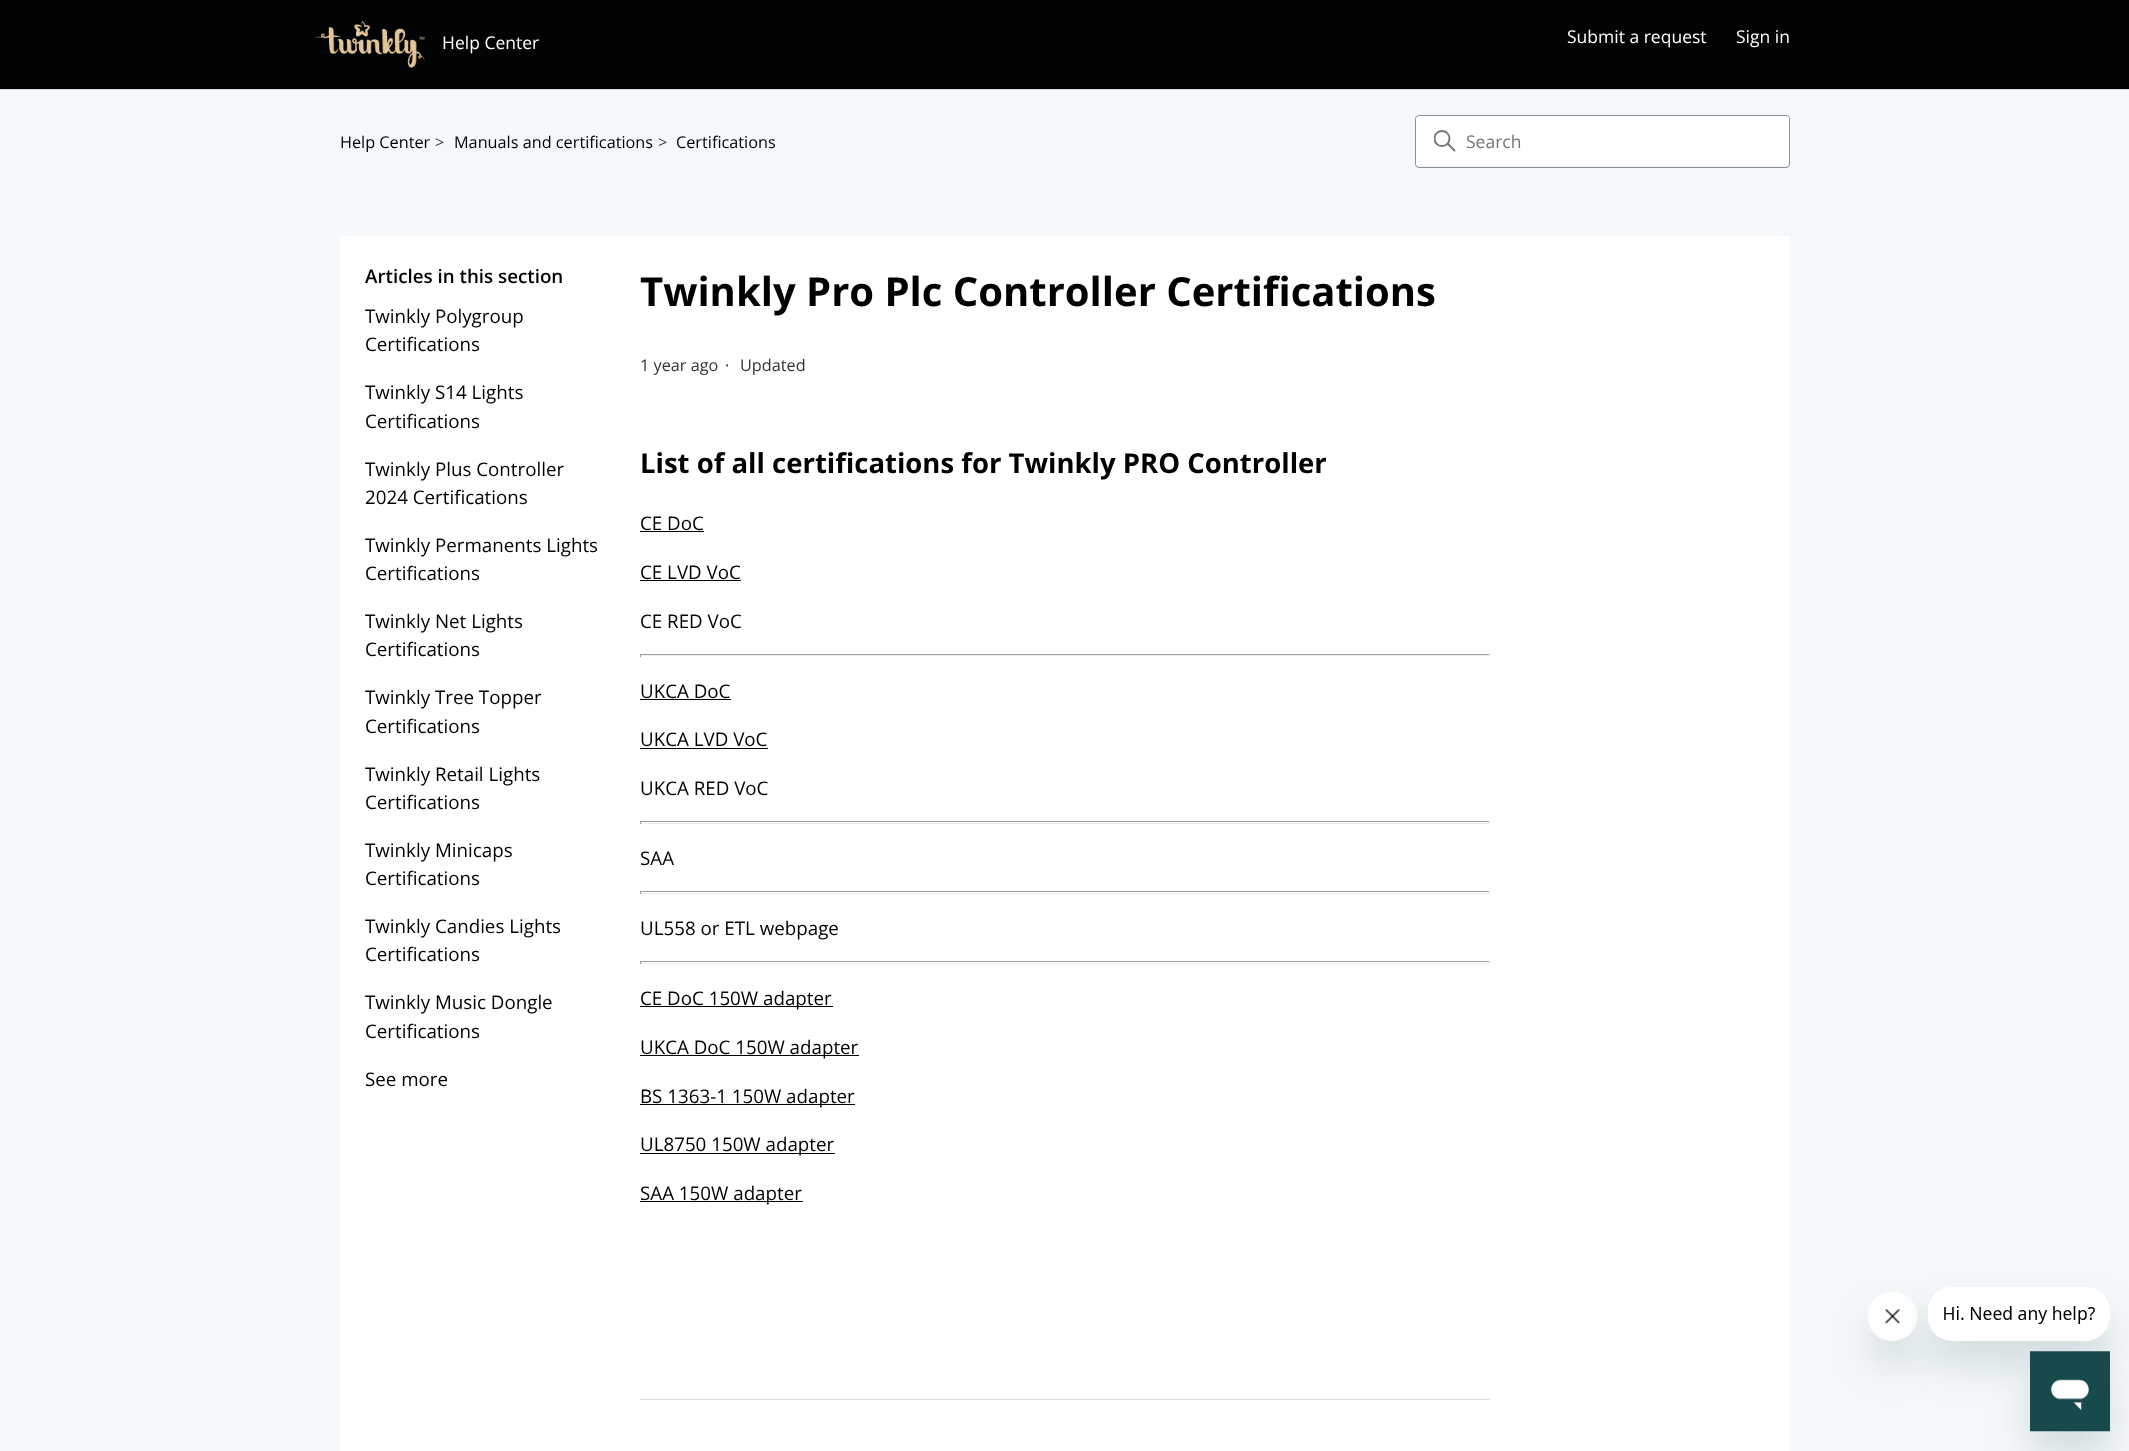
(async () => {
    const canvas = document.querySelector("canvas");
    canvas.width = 2129;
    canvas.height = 1451;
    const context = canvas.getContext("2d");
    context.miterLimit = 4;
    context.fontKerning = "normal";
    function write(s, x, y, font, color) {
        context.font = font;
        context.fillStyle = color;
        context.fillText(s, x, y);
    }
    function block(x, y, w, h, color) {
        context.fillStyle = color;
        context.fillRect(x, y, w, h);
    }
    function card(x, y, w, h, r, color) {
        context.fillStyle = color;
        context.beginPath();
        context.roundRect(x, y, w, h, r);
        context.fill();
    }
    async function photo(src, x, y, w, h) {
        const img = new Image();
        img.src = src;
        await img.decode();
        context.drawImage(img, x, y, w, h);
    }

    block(0, 0, 2129, 1451, "rgb(245, 248, 250)");
    block(0, 0, 2129, 89, "rgb(2, 3, 5)");
    await photo("media/1.png", 315, 21, 110, 47);
    write("Help Center", 442, 49, "17.5px Open Sans", "rgb(255, 255, 255)");
    write("Submit a request", 1567, 43, "17.5px Open Sans", "rgb(255, 255, 255)");
    write("Sign in", 1736, 43, "17.5px Open Sans", "rgb(255, 255, 255)");
    block(0, 89, 2129, 1, "rgb(221, 221, 221)");
    write("Help Center", 340, 148, "16.25px Open Sans", "rgb(0, 0, 0)");
    write(">", 435, 148, "16.25px Open Sans", "rgb(51, 51, 51)");
    write("Manuals and certifications", 454, 148, "16.25px Open Sans", "rgb(0, 0, 0)");
    write(">", 658, 148, "16.25px Open Sans", "rgb(51, 51, 51)");
    write("Certifications", 676, 148, "16.25px Open Sans", "rgb(0, 0, 0)");
    context.beginPath();
    context.roundRect(1415.5, 115.5, 374, 52, 3.5);
    context.strokeStyle = "rgb(135, 146, 157)";
    context.stroke();
    card(1416, 116, 373, 50, 4, "rgb(255, 255, 255)");
    context.save();
    context.beginPath();
    context.rect(1434, 130, 22, 23);
    context.clip();
    context.beginPath();
    context.arc(1442, 138.5, 7.5, 0, Math.PI * 2);
    context.strokeStyle = "rgb(119, 119, 119)";
    context.lineWidth = 1.9;
    context.stroke();
    context.restore();
    context.beginPath();
    context.moveTo(1454.5, 150.5);
    context.lineTo(1448, 144);
    context.strokeStyle = "rgb(119, 119, 119)";
    context.lineWidth = 1.9;
    context.lineCap = "round";
    context.stroke();
    write("Search", 1466, 148, "17.5px Open Sans", "rgb(117, 117, 117)");
    block(340, 236, 1450, 1215, "rgb(255, 255, 255)");
    write("Articles in this section", 365, 283, "600 18.75px Open Sans", "rgb(0, 0, 0)");
    write("Twinkly Polygroup", 365, 323, "18.75px Open Sans", "rgb(0, 0, 0)");
    write("Certifications", 365, 351, "18.75px Open Sans", "rgb(0, 0, 0)");
    write("Twinkly S14 Lights", 365, 399, "18.75px Open Sans", "rgb(0, 0, 0)");
    write("Certifications", 365, 428, "18.75px Open Sans", "rgb(0, 0, 0)");
    write("Twinkly Plus Controller", 365, 476, "18.75px Open Sans", "rgb(0, 0, 0)");
    write("2024 Certifications", 365, 504, "18.75px Open Sans", "rgb(0, 0, 0)");
    write("Twinkly Permanents Lights", 365, 552, "18.75px Open Sans", "rgb(0, 0, 0)");
    write("Certifications", 365, 580, "18.75px Open Sans", "rgb(0, 0, 0)");
    write("Twinkly Net Lights", 365, 628, "18.75px Open Sans", "rgb(0, 0, 0)");
    write("Certifications", 365, 656, "18.75px Open Sans", "rgb(0, 0, 0)");
    write("Twinkly Tree Topper", 365, 704, "18.75px Open Sans", "rgb(0, 0, 0)");
    write("Certifications", 365, 733, "18.75px Open Sans", "rgb(0, 0, 0)");
    write("Twinkly Retail Lights", 365, 781, "18.75px Open Sans", "rgb(0, 0, 0)");
    write("Certifications", 365, 809, "18.75px Open Sans", "rgb(0, 0, 0)");
    write("Twinkly Minicaps", 365, 857, "18.75px Open Sans", "rgb(0, 0, 0)");
    write("Certifications", 365, 885, "18.75px Open Sans", "rgb(0, 0, 0)");
    write("Twinkly Candies Lights", 365, 933, "18.75px Open Sans", "rgb(0, 0, 0)");
    write("Certifications", 365, 961, "18.75px Open Sans", "rgb(0, 0, 0)");
    write("Twinkly Music Dongle", 365, 1009, "18.75px Open Sans", "rgb(0, 0, 0)");
    write("Certifications", 365, 1038, "18.75px Open Sans", "rgb(0, 0, 0)");
    write("See more", 365, 1086, "18.75px Open Sans", "rgb(0, 0, 0)");
    write("Twinkly Pro Plc Controller Certifications", 640, 306, "bold 40px Open Sans", "rgb(0, 0, 0)");
    write("1 year ago", 640, 371, "16.25px Open Sans", "rgb(51, 51, 51)");
    write("·", 725, 371, "16.25px Open Sans", "rgb(51, 51, 51)");
    write("Updated", 740, 371, "16.25px Open Sans", "rgb(51, 51, 51)");
    write("List of all certifications for Twinkly PRO Controller", 640, 473, "bold 27.5px Open Sans", "rgb(0, 0, 0)");
    write("CE DoC", 640, 530, "18.75px Open Sans", "rgb(0, 0, 0)");
    block(640, 531, 64, 1, "rgb(0, 0, 0)");
    write("CE LVD VoC", 640, 579, "18.75px Open Sans", "rgb(0, 0, 0)");
    block(640, 580, 101, 1, "rgb(0, 0, 0)");
    write("CE RED VoC", 640, 628, "18.75px Open Sans", "rgb(0, 0, 0)");
    block(640, 654, 850, 1, "rgb(159, 159, 159)");
    block(1489, 654, 1, 3, "rgb(238, 238, 238)");
    block(640, 655, 850, 1, "rgb(238, 238, 238)");
    block(640, 654, 1, 3, "rgb(159, 159, 159)");
    write("UKCA DoC", 640, 698, "18.75px Open Sans", "rgb(0, 0, 0)");
    block(640, 699, 91, 1, "rgb(0, 0, 0)");
    write("UKCA LVD VoC", 640, 746, "18.75px Open Sans", "rgb(0, 0, 0)");
    block(640, 748, 128, 1, "rgb(0, 0, 0)");
    write("UKCA RED VoC", 640, 795, "18.75px Open Sans", "rgb(0, 0, 0)");
    block(640, 821, 850, 1, "rgb(159, 159, 159)");
    block(1489, 821, 1, 3, "rgb(238, 238, 238)");
    block(640, 823, 850, 1, "rgb(238, 238, 238)");
    block(640, 821, 1, 3, "rgb(159, 159, 159)");
    write("SAA", 640, 865, "18.75px Open Sans", "rgb(0, 0, 0)");
    block(640, 891, 850, 1, "rgb(159, 159, 159)");
    block(1489, 891, 1, 3, "rgb(238, 238, 238)");
    block(640, 893, 850, 1, "rgb(238, 238, 238)");
    block(640, 891, 1, 3, "rgb(159, 159, 159)");
    write("UL558 or ETL webpage", 640, 935, "18.75px Open Sans", "rgb(0, 0, 0)");
    block(640, 961, 850, 1, "rgb(159, 159, 159)");
    block(1489, 961, 1, 3, "rgb(238, 238, 238)");
    block(640, 963, 850, 1, "rgb(238, 238, 238)");
    block(640, 961, 1, 3, "rgb(159, 159, 159)");
    block(640, 1006, 193, 1, "rgb(0, 0, 0)");
    write("CE DoC 150W adapter", 640, 1005, "18.75px Open Sans", "rgb(0, 0, 0)");
    block(640, 1055, 219, 1, "rgb(0, 0, 0)");
    write("UKCA DoC 150W adapter", 640, 1054, "18.75px Open Sans", "rgb(0, 0, 0)");
    block(640, 1104, 215, 1, "rgb(0, 0, 0)");
    write("BS 1363-1 150W adapter", 640, 1103, "18.75px Open Sans", "rgb(0, 0, 0)");
    block(640, 1153, 195, 1, "rgb(0, 0, 0)");
    write("UL8750 150W adapter", 640, 1151, "18.75px Open Sans", "rgb(0, 0, 0)");
    block(640, 1201, 163, 1, "rgb(0, 0, 0)");
    write("SAA 150W adapter", 640, 1200, "18.75px Open Sans", "rgb(0, 0, 0)");
    block(640, 1399, 850, 1, "rgb(221, 221, 221)");
    context.fillStyle = "rgba(23, 73, 77, 0.15)";
    context.filter = "blur(19px)";
    context.beginPath();
    context.roundRect(1868, 1316, 50, 50, 25);
    context.fill();
    context.filter = "none";
    await photo("media/3.png", 1867, 1291, 51, 51);
    context.filter = "blur(19px)";
    context.beginPath();
    context.roundRect(1928, 1311, 182, 55, 25);
    context.fill();
    context.filter = "none";
    await photo("media/2.png", 1928, 1287, 182, 54);
    context.filter = "blur(19px)";
    context.beginPath();
    context.rect(2030, 1376, 80, 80);
    context.fill();
    context.filter = "none";
    await photo("media/4.png", 2030, 1351, 80, 81);
})();
